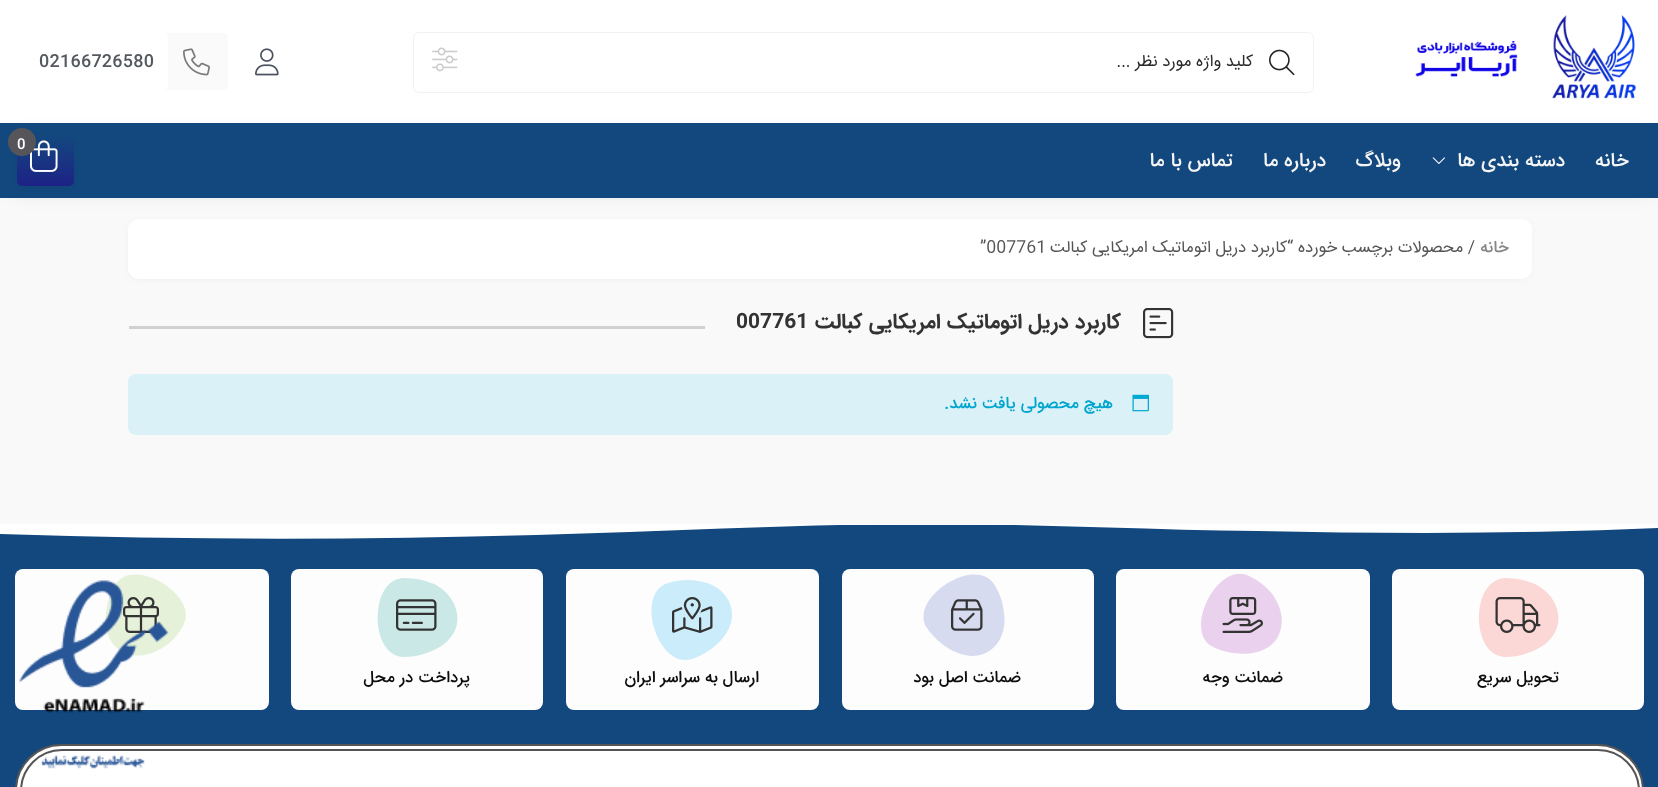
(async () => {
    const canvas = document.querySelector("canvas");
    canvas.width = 1658;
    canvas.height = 787;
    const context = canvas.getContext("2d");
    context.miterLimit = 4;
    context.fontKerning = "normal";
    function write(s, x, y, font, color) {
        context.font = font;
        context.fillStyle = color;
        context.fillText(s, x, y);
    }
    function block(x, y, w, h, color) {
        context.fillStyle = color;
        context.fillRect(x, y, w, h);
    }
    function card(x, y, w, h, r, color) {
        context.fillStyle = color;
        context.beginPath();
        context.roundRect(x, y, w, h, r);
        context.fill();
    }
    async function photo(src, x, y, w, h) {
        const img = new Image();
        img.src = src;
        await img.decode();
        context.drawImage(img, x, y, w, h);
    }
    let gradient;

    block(0, 0, 1658, 787, "rgb(249, 249, 249)");
    block(0, 0, 1658, 123, "rgb(255, 255, 255)");
    await photo("media/1.png", 1415, 15, 221, 84);
    context.beginPath();
    context.roundRect(414, 33, 899, 59, 5);
    context.strokeStyle = "rgb(242, 242, 242)";
    context.lineWidth = 2;
    context.stroke();
    card(414, 33, 899, 59, 5, "rgb(255, 255, 255)");
    await photo("media/2.png", 1269, 49, 26, 27);
    context.direction = "rtl";
    write("کلید واژه مورد نظر ...", 1253, 66, "16.5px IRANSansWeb", "rgb(41, 41, 41)");
    await photo("media/3.png", 432, 47, 26, 25);
    await photo("media/4.png", 255, 48, 24, 28);
    context.fillStyle = "rgb(250, 250, 250)";
    context.beginPath();
    context.moveTo(164, 90);
    context.lineTo(223, 90);
    context.bezierCurveTo(226, 90, 228, 88, 228, 85);
    context.lineTo(228, 38);
    context.bezierCurveTo(228, 35, 226, 33, 223, 33);
    context.lineTo(164, 33);
    context.bezierCurveTo(166, 33, 168, 35, 168, 38);
    context.lineTo(168, 86);
    context.bezierCurveTo(168, 88, 166, 90, 164, 90);
    context.closePath();
    context.fill();
    await photo("media/5.png", 183, 48, 27, 28);
    context.letterSpacing = "0.25px";
    context.direction = "ltr";
    write("02166726580", 39, 67, "500 18px IRANSansWeb", "rgb(84, 89, 95)");
    context.fillStyle = "rgba(0, 0, 0, 0.1)";
    context.filter = "blur(5px)";
    context.beginPath();
    context.roundRect(132, 225, 1395, 51, 6);
    context.fill();
    context.filter = "none";
    card(128, 219, 1404, 60, 11, "rgb(255, 255, 255)");
    context.fillStyle = "rgba(0, 0, 0, 0.2)";
    context.filter = "blur(10.5px)";
    context.beginPath();
    context.rect(14, 140, 1632, 48);
    context.fill();
    context.filter = "none";
    block(0, 123, 1658, 75, "rgb(19, 72, 126)");
    context.fillStyle = "rgba(0, 0, 0, 0.1)";
    context.filter = "blur(5px)";
    context.beginPath();
    context.rect(21, 141, 48, 42);
    context.fill();
    context.filter = "none";
    gradient = context.createLinearGradient(45, 135, 45, 186);
    gradient.addColorStop(0, "rgb(19, 72, 126)");
    gradient.addColorStop(1, "rgb(29, 34, 134)");
    context.fillStyle = gradient;
    context.beginPath();
    context.roundRect(17, 135, 57, 51, 5);
    context.fill();
    await photo("media/6.png", 30, 140, 28, 32);
    context.fillStyle = "rgb(85, 85, 90)";
    context.beginPath();
    context.arc(22, 142, 14, 0, Math.PI * 2);
    context.fill();
    context.letterSpacing = "0px";
    write("0", 17, 149, "500 15px IRANSansWeb", "rgb(255, 255, 255)");
    context.direction = "rtl";
    write("خانه", 1629, 166, "500 19.5px IRANSansWeb", "rgb(245, 245, 245)");
    write("دسته بندی ها", 1565, 166, "500 19.5px IRANSansWeb", "rgb(245, 245, 245)");
    await photo("media/7.png", 1432, 157, 13, 7);
    write("وبلاگ", 1401, 166, "500 19.5px IRANSansWeb", "rgb(245, 245, 245)");
    write("درباره ما", 1326, 166, "500 19.5px IRANSansWeb", "rgb(245, 245, 245)");
    write("تماس با ما", 1233, 166, "500 19.5px IRANSansWeb", "rgb(245, 245, 245)");
    write("خانه", 1509, 252, "500 16.5px IRANSansWeb", "rgb(136, 136, 136)");
    write("/ محصولات برچسب خورده “کاربرد دریل اتوماتیک امریکایی کبالت", 1475, 252, "16.5px IRANSansWeb", "rgb(85, 85, 85)");
    context.direction = "ltr";
    write("”007761", 980, 252, "16.5px IRANSansWeb", "rgb(85, 85, 85)");
    await photo("media/8.png", 1143, 308, 31, 31);
    context.direction = "rtl";
    write("کاربرد دریل اتوماتیک امریکایی کبالت", 1121, 328, "bold 21px IRANSansWeb", "rgb(51, 51, 51)");
    context.direction = "ltr";
    write("007761", 736, 328, "bold 21px IRANSansWeb", "rgb(51, 51, 51)");
    block(129, 326, 576, 3, "rgb(209, 209, 209)");
    card(128, 374, 1045, 61, 8, "rgb(217, 241, 247)");
    await photo("media/9.png", 1132, 394, 17, 18);
    context.direction = "rtl";
    write("هیچ محصولی یافت نشد.", 1113, 408, "500 16.5px IRANSansWeb", "rgb(0, 165, 206)");
    block(0, 525, 1658, 262, "rgb(19, 72, 126)");
    context.save();
    context.beginPath();
    context.rect(0, 524, 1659, 15);
    context.clip();
    context.fillStyle = "rgb(255, 255, 255)";
    context.beginPath();
    context.moveTo(959, 524);
    context.bezierCurveTo(818, 523, 677, 531, 536, 535);
    context.bezierCurveTo(357, 540, 178, 540, -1, 534);
    context.lineTo(-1, 524);
    context.lineTo(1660, 524);
    context.lineTo(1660, 528);
    context.bezierCurveTo(1526, 534, 1392, 534, 1258, 531);
    context.bezierCurveTo(1158, 530, 1059, 525, 959, 524);
    context.closePath();
    context.fill();
    context.restore();
    card(1392, 569, 252, 141, 8, "rgb(253, 253, 253)");
    context.fillStyle = "rgb(251, 216, 213)";
    context.beginPath();
    context.moveTo(1506, 578);
    context.bezierCurveTo(1516, 578, 1526, 580, 1535, 584);
    context.bezierCurveTo(1545, 589, 1554, 598, 1557, 609);
    context.bezierCurveTo(1566, 640, 1531, 657, 1506, 657);
    context.bezierCurveTo(1470, 657, 1470, 578, 1506, 578);
    context.closePath();
    context.fill();
    await photo("media/10.png", 1495, 597, 46, 36);
    write("تحویل سریع", 1559, 682, "500 16.5px IRANSansWeb", "rgb(12, 12, 12)");
    card(1116, 569, 254, 141, 8, "rgb(253, 253, 253)");
    context.fillStyle = "rgb(234, 210, 238)";
    context.beginPath();
    context.moveTo(1249, 576);
    context.bezierCurveTo(1258, 580, 1267, 587, 1273, 595);
    context.bezierCurveTo(1279, 604, 1284, 616, 1281, 628);
    context.bezierCurveTo(1275, 658, 1236, 658, 1213, 647);
    context.bezierCurveTo(1182, 631, 1218, 560, 1249, 576);
    context.closePath();
    context.fill();
    await photo("media/11.png", 1222, 597, 41, 36);
    write("ضمانت وجه", 1283, 682, "500 16.5px IRANSansWeb", "rgb(12, 12, 12)");
    card(842, 569, 252, 141, 8, "rgb(253, 253, 253)");
    context.fillStyle = "rgb(215, 219, 239)";
    context.beginPath();
    context.moveTo(994, 584);
    context.bezierCurveTo(1000, 593, 1003, 603, 1004, 613);
    context.bezierCurveTo(1006, 624, 1003, 637, 996, 645);
    context.bezierCurveTo(975, 669, 941, 649, 927, 628);
    context.bezierCurveTo(908, 598, 975, 555, 994, 584);
    context.closePath();
    context.fill();
    await photo("media/12.png", 951, 599, 32, 32);
    write("ضمانت اصل بود", 1021, 682, "500 16.5px IRANSansWeb", "rgb(12, 12, 12)");
    card(566, 569, 253, 141, 8, "rgb(253, 253, 253)");
    context.fillStyle = "rgb(203, 236, 251)";
    context.beginPath();
    context.moveTo(668, 583);
    context.bezierCurveTo(678, 580, 689, 579, 699, 581);
    context.bezierCurveTo(710, 583, 721, 588, 727, 598);
    context.bezierCurveTo(744, 625, 715, 652, 692, 659);
    context.bezierCurveTo(658, 670, 634, 593, 668, 583);
    context.closePath();
    context.fill();
    await photo("media/13.png", 672, 597, 41, 36);
    write("ارسال به سراسر ایران", 759, 682, "500 16.5px IRANSansWeb", "rgb(12, 12, 12)");
    card(291, 569, 252, 141, 8, "rgb(253, 253, 253)");
    context.fillStyle = "rgb(202, 232, 230)";
    context.beginPath();
    context.moveTo(404, 578);
    context.bezierCurveTo(415, 578, 425, 580, 434, 584);
    context.bezierCurveTo(444, 589, 453, 598, 456, 609);
    context.bezierCurveTo(465, 640, 430, 657, 404, 657);
    context.bezierCurveTo(369, 657, 369, 578, 404, 578);
    context.closePath();
    context.fill();
    await photo("media/14.png", 396, 599, 41, 32);
    write("پرداخت در محل", 470, 682, "500 16.5px IRANSansWeb", "rgb(12, 12, 12)");
    card(15, 569, 254, 141, 8, "rgb(253, 253, 253)");
    context.fillStyle = "rgb(230, 241, 217)";
    context.beginPath();
    context.moveTo(183, 626);
    context.bezierCurveTo(178, 635, 171, 643, 162, 648);
    context.bezierCurveTo(152, 654, 140, 658, 129, 654);
    context.bezierCurveTo(99, 646, 102, 607, 115, 585);
    context.bezierCurveTo(133, 555, 201, 596, 183, 626);
    context.closePath();
    context.fill();
    await photo("media/15.png", 123, 597, 36, 36);
    context.fillStyle = "rgb(255, 255, 255)";
    context.beginPath();
    context.roundRect(16, 745, 1627, 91, 47);
    context.fill();
    context.strokeStyle = "rgb(85, 85, 85)";
    context.stroke();
    context.beginPath();
    context.roundRect(21, 750, 1618, 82, 42.5);
    context.stroke();
    await photo("media/16.png", 19, 580, 150, 189);
})();
